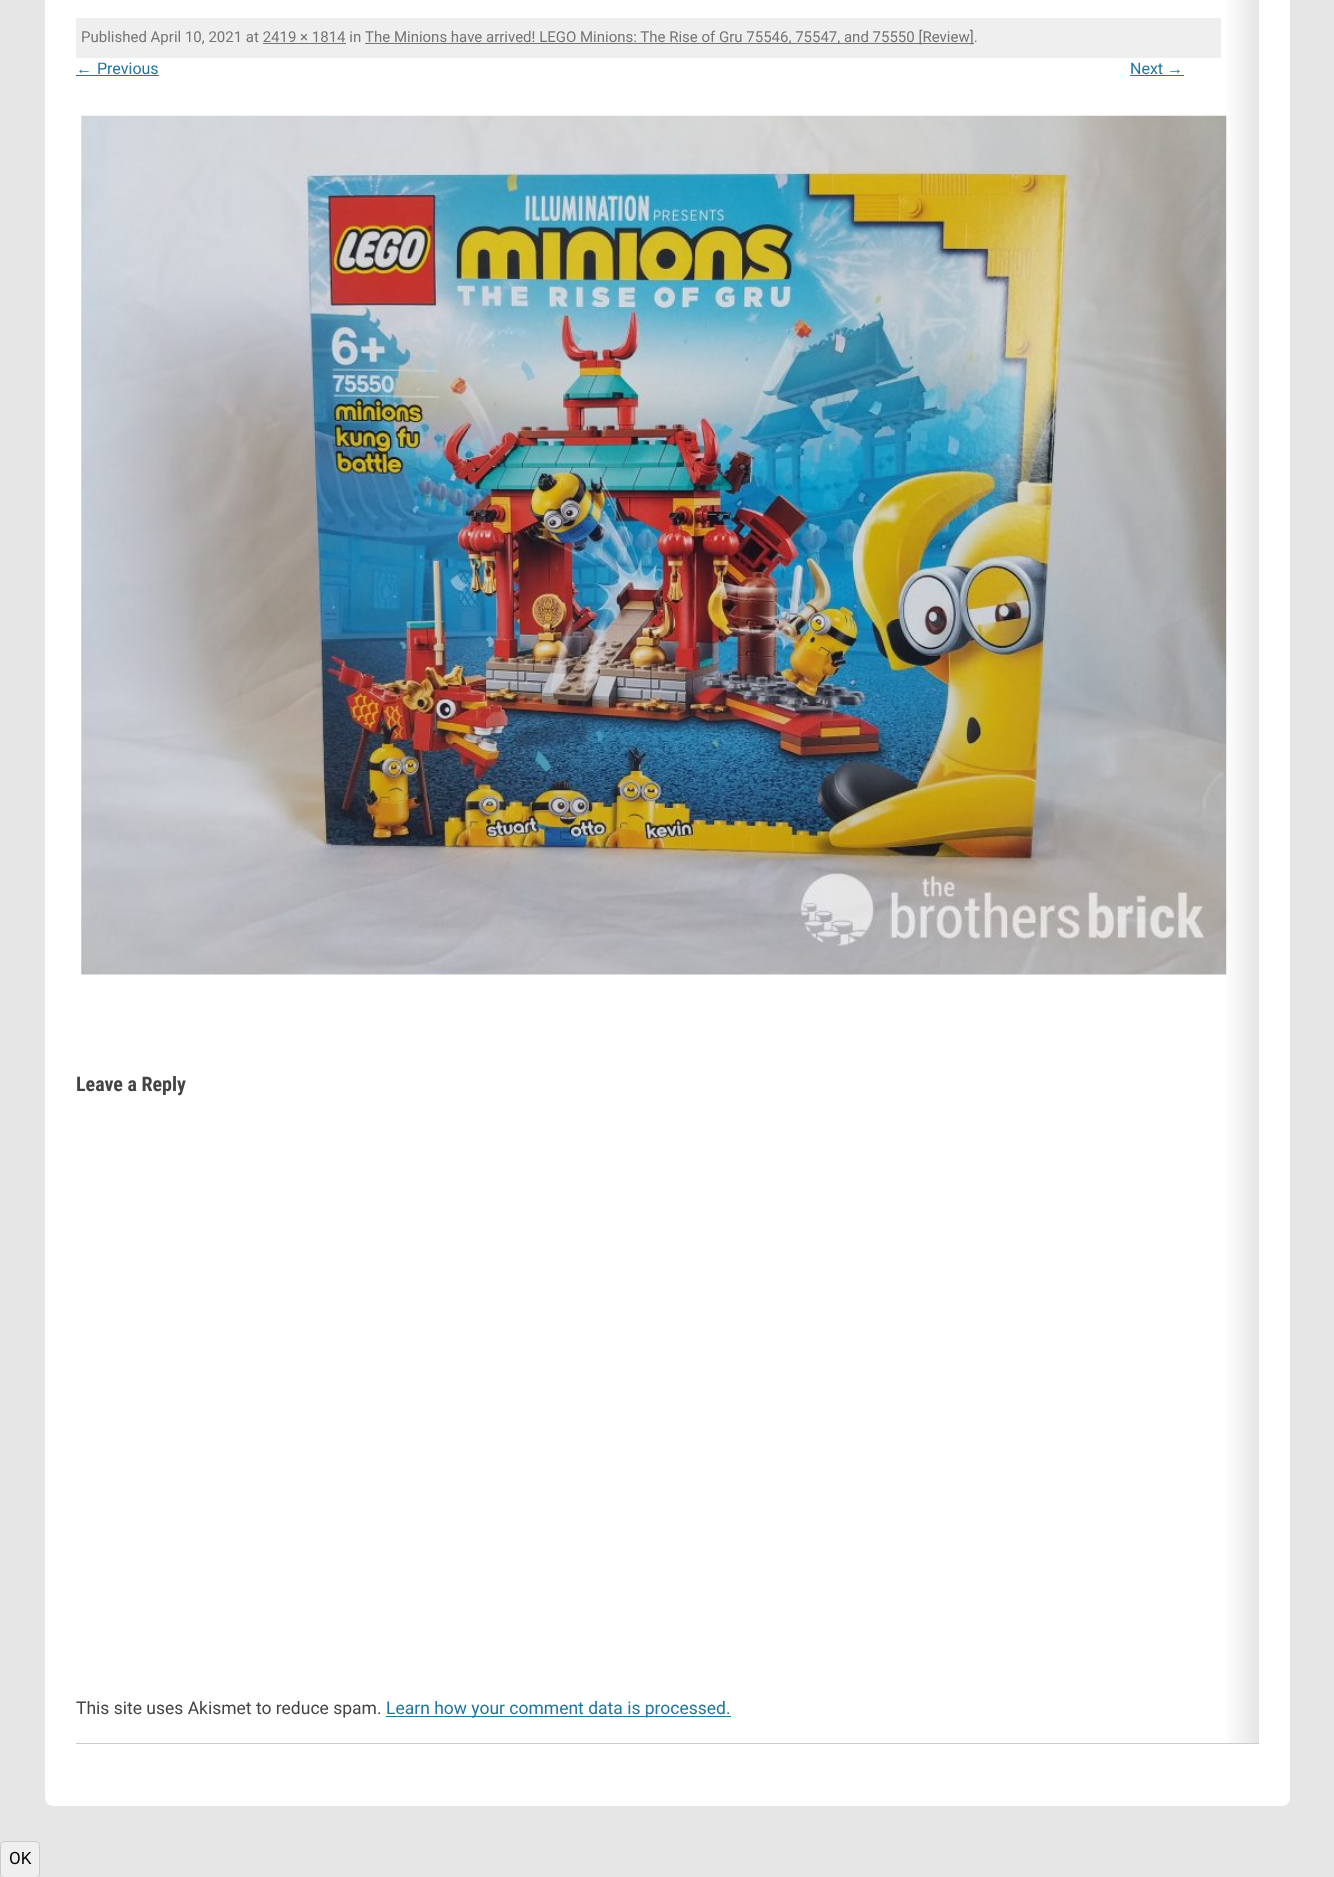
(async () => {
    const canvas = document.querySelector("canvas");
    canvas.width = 1334;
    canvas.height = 1877;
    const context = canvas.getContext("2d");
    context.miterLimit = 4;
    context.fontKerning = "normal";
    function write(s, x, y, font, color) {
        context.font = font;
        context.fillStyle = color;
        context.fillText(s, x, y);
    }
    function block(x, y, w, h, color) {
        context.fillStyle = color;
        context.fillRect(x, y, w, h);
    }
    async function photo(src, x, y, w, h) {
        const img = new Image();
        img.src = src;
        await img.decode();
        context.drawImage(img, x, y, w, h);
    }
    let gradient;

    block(0, 0, 1334, 1877, "rgb(230, 230, 230)");
    context.fillStyle = "rgb(255, 255, 255)";
    context.beginPath();
    context.moveTo(45, -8);
    context.lineTo(1290, -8);
    context.lineTo(1290, 1798);
    context.bezierCurveTo(1290, 1802.5, 1286.5, 1806, 1282, 1806);
    context.lineTo(53, 1806);
    context.bezierCurveTo(48.5, 1806, 45, 1802.5, 45, 1798);
    context.closePath();
    context.fill();
    gradient = context.createLinearGradient(76, 824, 1259, 824);
    gradient.addColorStop(0.97, "rgb(255, 255, 255)");
    gradient.addColorStop(1, "rgb(229, 229, 229)");
    context.fillStyle = gradient;
    context.fillRect(1227, 0, 32, 1743);
    block(76, 18, 1145, 40, "rgb(239, 239, 239)");
    write("Published April 10, 2021 at 2419 × 1814 in", 81, 42, "15px Roboto", "rgb(117, 117, 117)");
    block(365, 43, 609, 1, "rgb(117, 117, 117)");
    write("The Minions have arrived! LEGO Minions: The Rise of Gru 75546, 75547, and 75550 [Review].", 365, 42, "15px Roboto", "rgb(117, 117, 117)");
    block(263, 43, 83, 1, "rgb(117, 117, 117)");
    write("←", 76, 74, "16px Liberation Sans", "rgb(33, 118, 155)");
    block(76, 75, 83, 1, "rgb(33, 118, 155)");
    write("Previous", 97, 74, "16px Roboto", "rgb(33, 118, 155)");
    write("Next", 1130, 74, "16px Roboto", "rgb(33, 118, 155)");
    write("→", 1167, 74, "16px Liberation Sans", "rgb(33, 118, 155)");
    block(1130, 75, 54, 1, "rgb(33, 118, 155)");
    await photo("media/1.png", 81, 115, 1146, 860);
    write("Leave a Reply", 76, 1091, "bold 20px Roboto Condensed", "rgb(68, 68, 68)");
    write("This site uses Akismet to reduce spam.", 76, 1714, "17.5px Roboto", "rgb(68, 68, 68)");
    block(386, 1716, 345, 1, "rgb(33, 118, 155)");
    write("Learn how your comment data is processed.", 386, 1714, "17.5px Roboto", "rgb(33, 118, 155)");
    block(76, 1743, 1183, 1, "rgb(204, 204, 204)");
    context.fillStyle = "rgb(239, 239, 239)";
    context.beginPath();
    context.roundRect(0.5, 1841.5, 39, 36, 3.5);
    context.fill();
    context.strokeStyle = "rgb(204, 204, 204)";
    context.stroke();
    write("OK", 9, 1864, "17px Roboto", "rgb(0, 0, 0)");
})();
